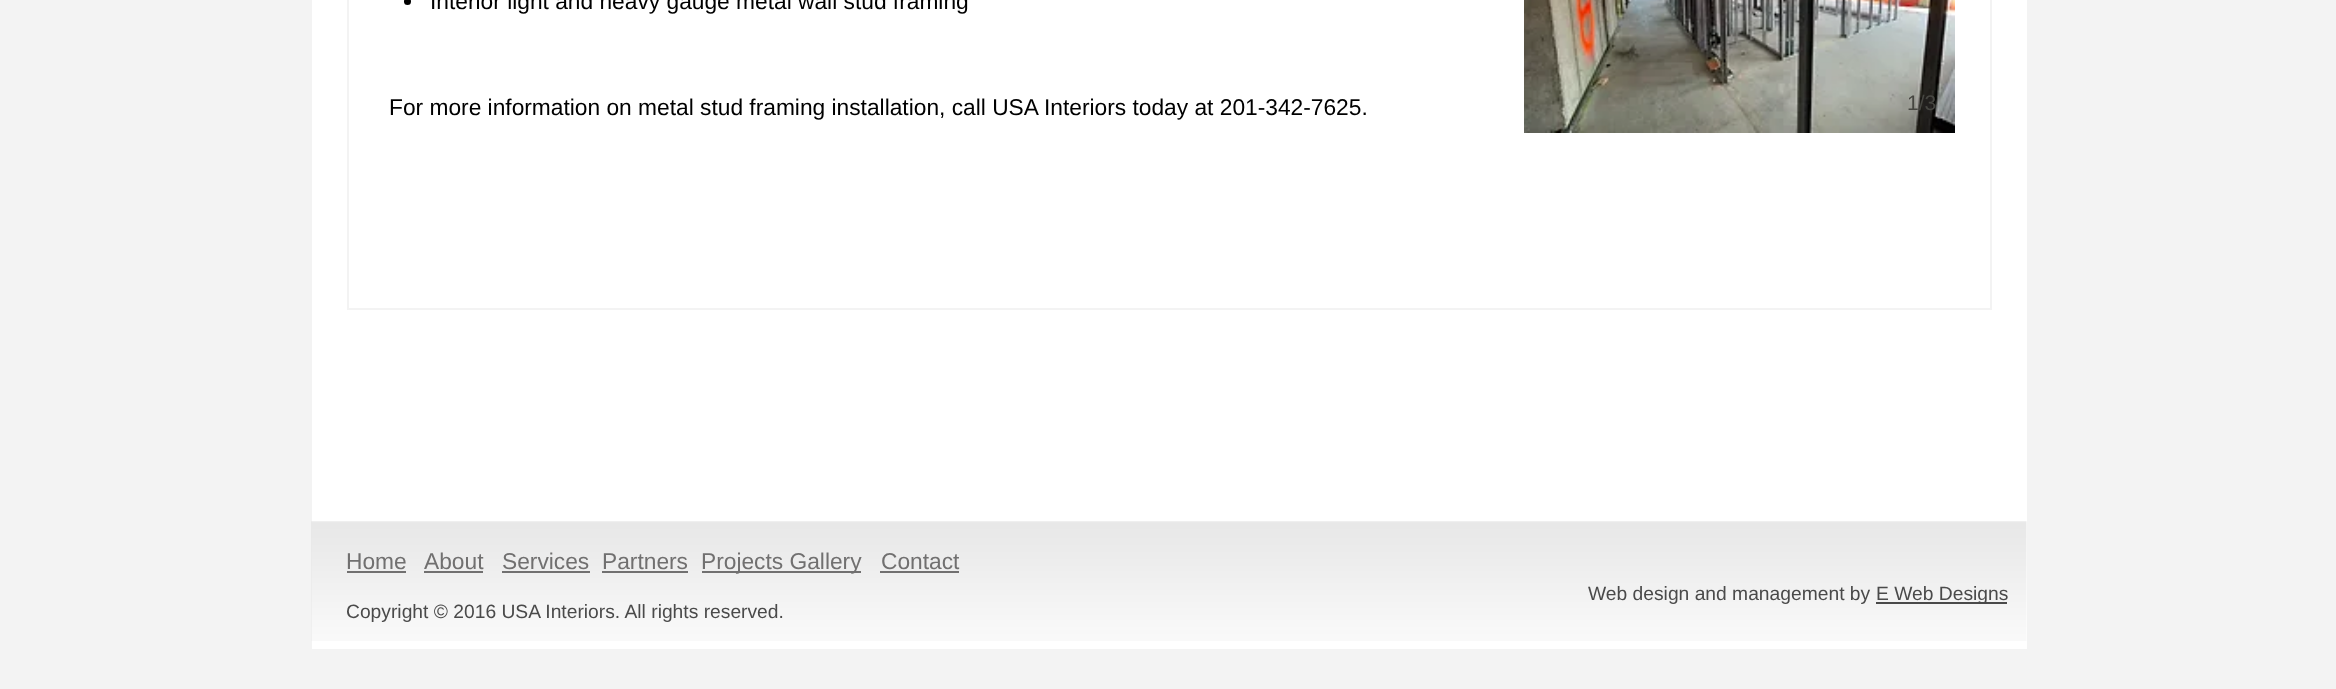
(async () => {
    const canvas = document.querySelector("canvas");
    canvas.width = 2336;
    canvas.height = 689;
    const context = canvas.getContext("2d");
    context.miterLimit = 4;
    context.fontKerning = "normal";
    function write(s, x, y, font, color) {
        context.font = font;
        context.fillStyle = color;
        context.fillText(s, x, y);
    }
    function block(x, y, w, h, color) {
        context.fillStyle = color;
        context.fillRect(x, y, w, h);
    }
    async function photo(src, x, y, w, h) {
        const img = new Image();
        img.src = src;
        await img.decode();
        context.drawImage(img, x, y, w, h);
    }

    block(0, 0, 2336, 689, "rgb(243, 243, 243)");
    block(312, 0, 1715, 649, "rgb(255, 255, 255)");
    context.strokeStyle = "rgb(243, 243, 243)";
    context.lineWidth = 2;
    context.strokeRect(348, -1, 1643, 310);
    context.fillStyle = "rgb(0, 0, 0)";
    context.beginPath();
    context.arc(407.5, 1.5, 3.5, 0, Math.PI * 2);
    context.fill();
    write("Interior light and heavy gauge metal wall stud framing", 430, 9, "22.75px Liberation Sans", "rgb(0, 0, 0)");
    write("For more information on metal stud framing installation, call USA Interiors today at 201-342-7625.", 389, 115, "22.75px Liberation Sans", "rgb(0, 0, 0)");
    await photo("media/1.png", 1524, 0, 431, 133);
    write("1/3", 1907, 110, "21px Liberation Sans", "rgb(70, 70, 65)");
    await photo("media/2.png", 311, 521, 1716, 120);
    write("Home", 346, 569, "22.75px Liberation Sans", "rgb(113, 112, 112)");
    block(347, 571, 59, 2, "rgb(113, 112, 112)");
    write("About", 424, 569, "22.75px Liberation Sans", "rgb(113, 112, 112)");
    block(424, 571, 59, 2, "rgb(113, 112, 112)");
    write("Services", 502, 569, "22.75px Liberation Sans", "rgb(113, 112, 112)");
    block(502, 571, 88, 2, "rgb(113, 112, 112)");
    write("Partners", 602, 569, "22.75px Liberation Sans", "rgb(113, 112, 112)");
    block(602, 571, 86, 2, "rgb(113, 112, 112)");
    block(702, 571, 159, 2, "rgb(113, 112, 112)");
    write("Projects Gallery", 701, 569, "22.75px Liberation Sans", "rgb(113, 112, 112)");
    write("Contact", 881, 569, "22.75px Liberation Sans", "rgb(113, 112, 112)");
    block(880, 571, 79, 2, "rgb(113, 112, 112)");
    write("Copyright © 2016 USA Interiors. All rights reserved.", 346, 618, "19.25px Liberation Sans", "rgb(74, 74, 74)");
    write("Web design and management by", 1588, 600, "19.25px Liberation Sans", "rgb(74, 74, 74)");
    block(1876, 602, 131, 2, "rgb(74, 74, 74)");
    write("E Web Designs", 1876, 600, "19.25px Liberation Sans", "rgb(74, 74, 74)");
})();
